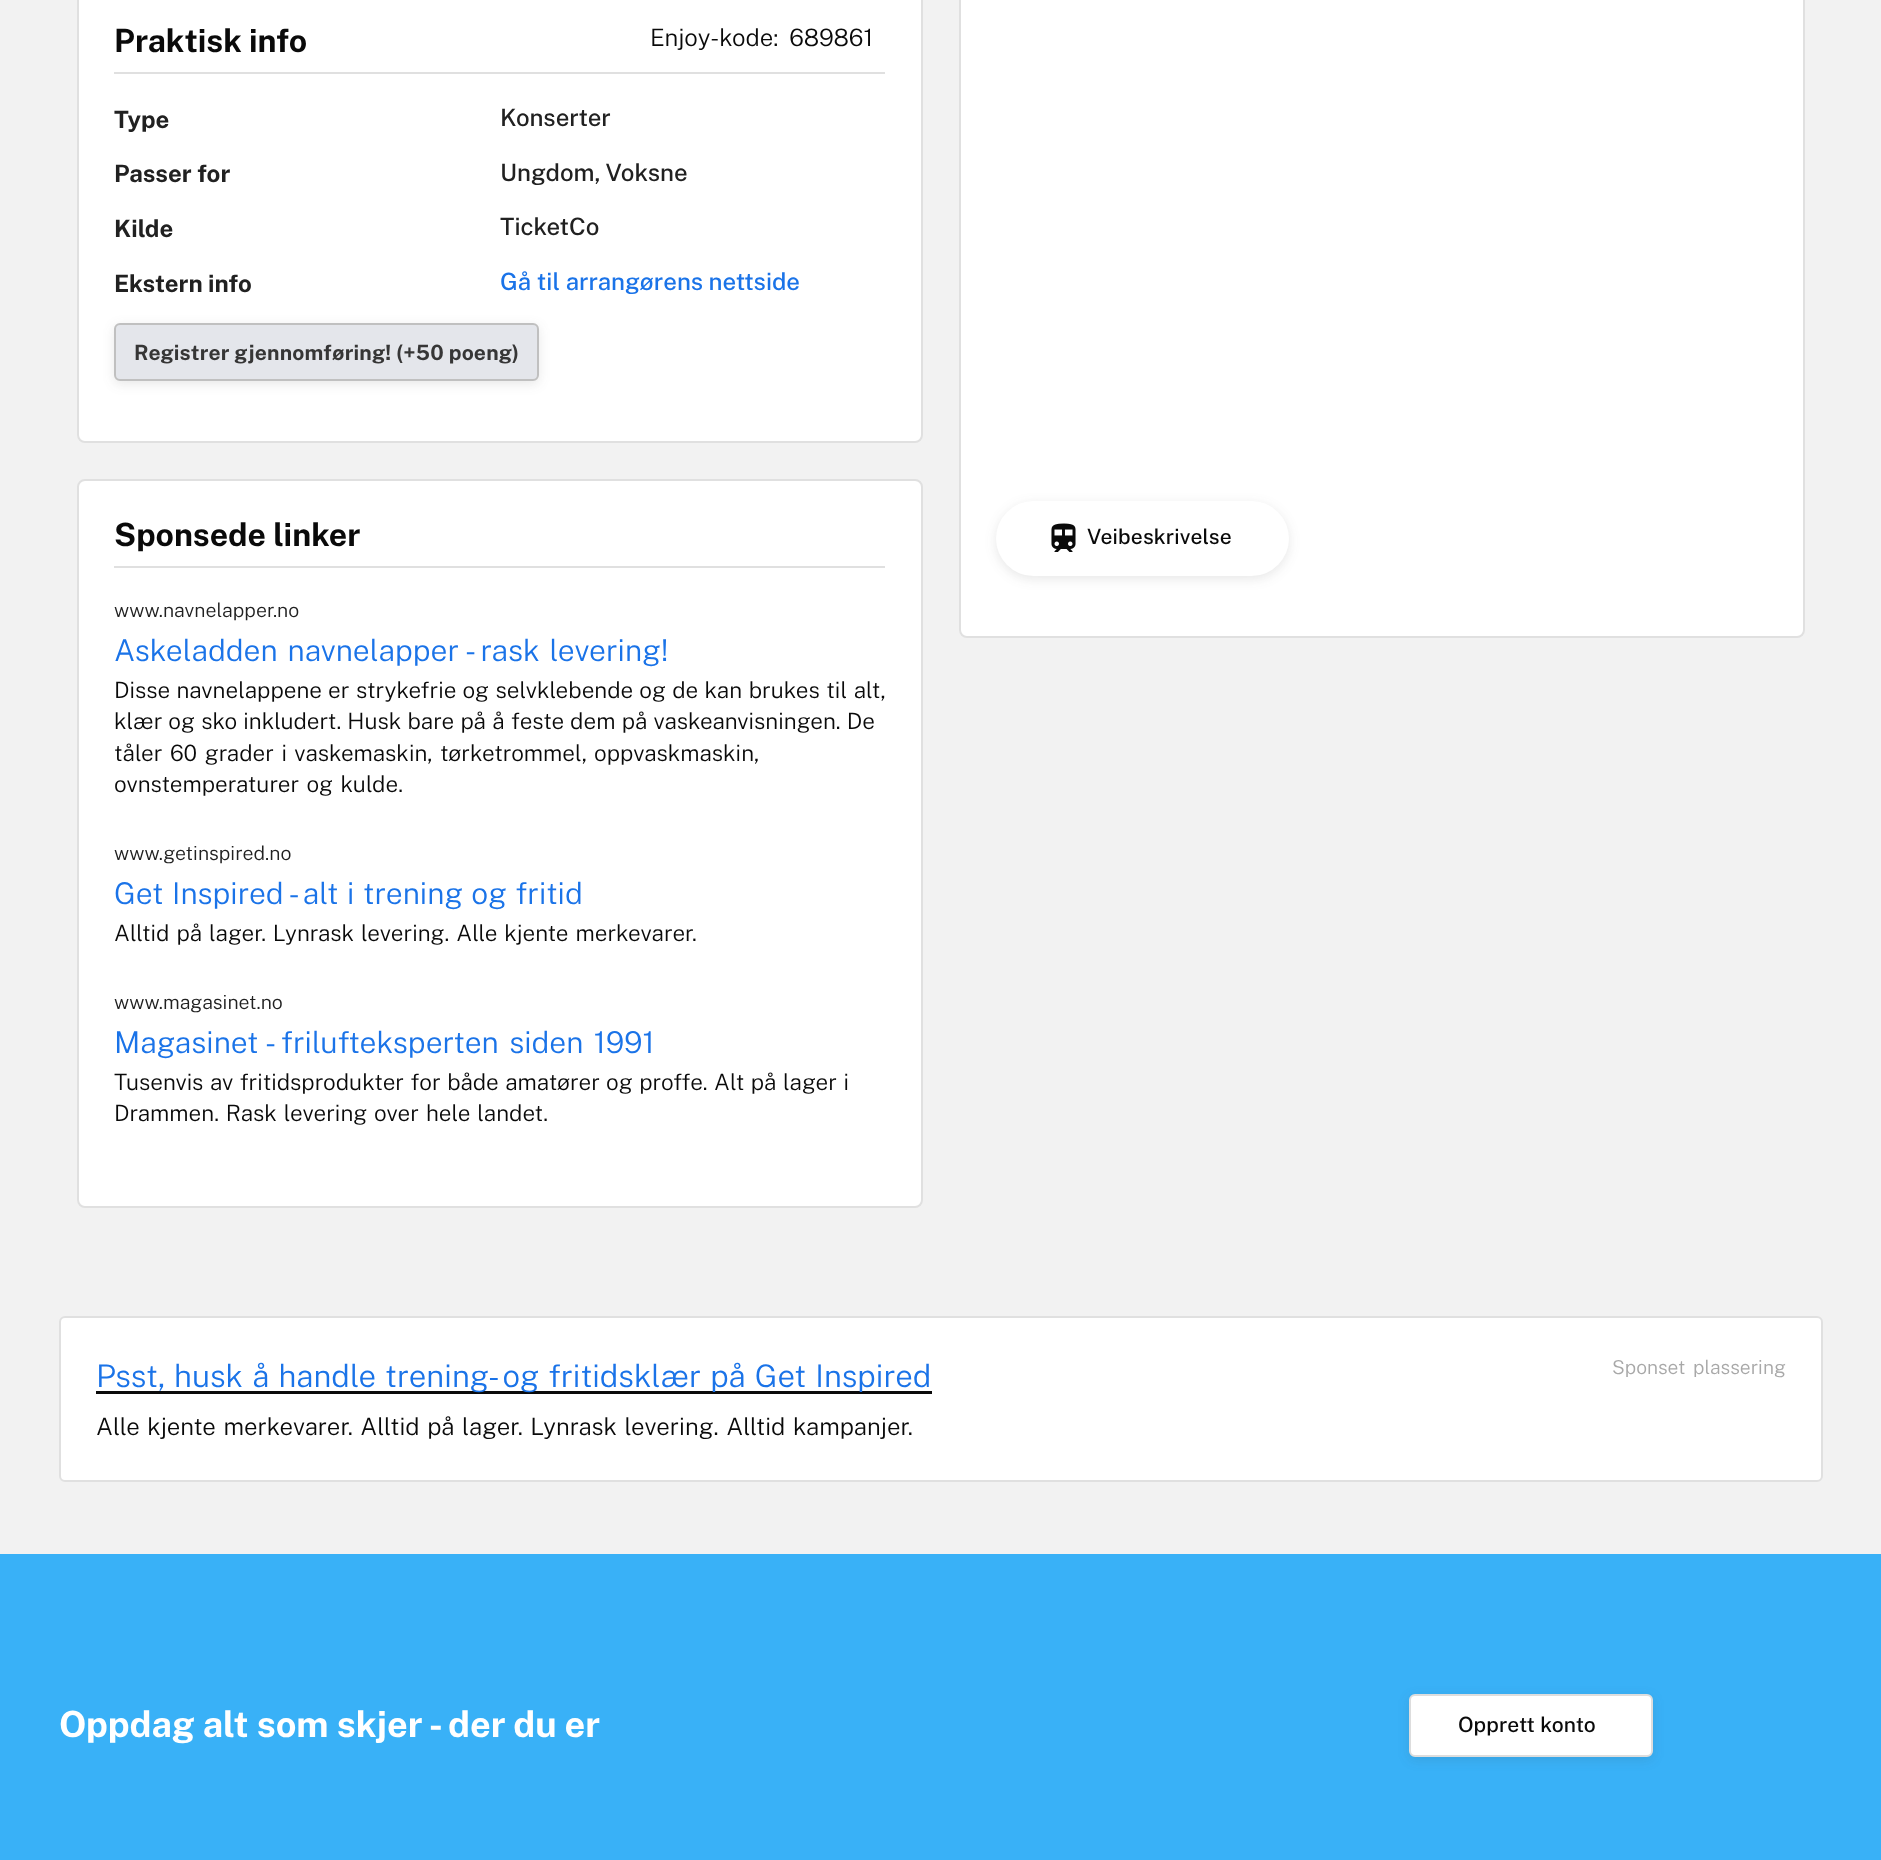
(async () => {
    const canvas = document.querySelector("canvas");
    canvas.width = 1881;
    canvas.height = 1860;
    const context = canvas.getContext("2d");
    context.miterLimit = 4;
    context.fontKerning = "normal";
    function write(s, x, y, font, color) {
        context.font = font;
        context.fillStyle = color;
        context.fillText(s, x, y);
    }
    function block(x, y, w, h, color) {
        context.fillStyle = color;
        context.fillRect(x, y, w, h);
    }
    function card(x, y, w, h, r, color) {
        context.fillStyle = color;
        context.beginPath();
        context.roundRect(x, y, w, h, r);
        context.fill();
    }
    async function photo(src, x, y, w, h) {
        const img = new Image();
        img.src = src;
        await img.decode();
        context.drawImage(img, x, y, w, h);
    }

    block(0, 0, 1881, 1860, "rgb(242, 242, 242)");
    context.fillStyle = "rgb(255, 255, 255)";
    context.beginPath();
    context.roundRect(78, -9, 844, 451, 7);
    context.fill();
    context.strokeStyle = "rgb(224, 224, 224)";
    context.lineWidth = 2;
    context.stroke();
    block(114, 72, 771, 2, "rgb(224, 224, 224)");
    write("Praktisk info", 114, 52, "bold 32px Public Sans", "rgb(10, 10, 10)");
    context.wordSpacing = "5px";
    write("Enjoy-kode: 689861", 650, 46, "300 24px Public Sans", "rgb(10, 10, 10)");
    context.wordSpacing = "0px";
    write("Type", 114, 128, "bold 24px Public Sans", "rgb(33, 33, 33)");
    write("Konserter", 500, 126, "500 24px Public Sans", "rgb(33, 33, 33)");
    write("Passer for", 114, 182, "bold 24px Public Sans", "rgb(33, 33, 33)");
    write("Ungdom, Voksne", 500, 181, "500 24px Public Sans", "rgb(33, 33, 33)");
    write("Kilde", 114, 237, "bold 24px Public Sans", "rgb(33, 33, 33)");
    write("TicketCo", 500, 235, "500 24px Public Sans", "rgb(33, 33, 33)");
    write("Ekstern info", 114, 292, "bold 24px Public Sans", "rgb(33, 33, 33)");
    write("Gå til arrangørens nettside", 500, 290, "500 24px Public Sans", "rgb(26, 115, 232)");
    context.fillStyle = "rgba(56, 56, 56, 0.12)";
    context.filter = "blur(6px)";
    context.beginPath();
    context.roundRect(114, 326, 425, 58, 6);
    context.fill();
    context.filter = "none";
    context.fillStyle = "rgb(228, 230, 235)";
    context.beginPath();
    context.roundRect(115, 324, 423, 56, 5);
    context.fill();
    context.strokeStyle = "rgb(192, 192, 192)";
    context.stroke();
    context.letterSpacing = "0.15px";
    write("Registrer gjennomføring! (+50 poeng)", 134, 360, "bold 21px Public Sans", "rgb(54, 54, 54)");
    context.fillStyle = "rgb(255, 255, 255)";
    context.beginPath();
    context.roundRect(78, 480, 844, 727, 7);
    context.fill();
    context.strokeStyle = "rgb(224, 224, 224)";
    context.stroke();
    block(114, 566, 771, 2, "rgb(224, 224, 224)");
    context.letterSpacing = "0px";
    write("Sponsede linker", 114, 546, "bold 32px Public Sans", "rgb(10, 10, 10)");
    write("www.navnelapper.no", 114, 617, "300 19.5px Public Sans", "rgb(33, 33, 33)");
    context.wordSpacing = "2.5px";
    write("Askeladden navnelapper - rask levering!", 114, 661, "300 30px Public Sans", "rgb(26, 115, 232)");
    context.wordSpacing = "1px";
    write("Disse navnelappene er strykefrie og selvklebende og de kan brukes til alt,", 114, 698, "300 22.5px Public Sans", "rgb(10, 10, 10)");
    context.wordSpacing = "0.75px";
    write("klær og sko inkludert. Husk bare på å feste dem på vaskeanvisningen. De", 114, 729, "300 22.5px Public Sans", "rgb(10, 10, 10)");
    context.wordSpacing = "2px";
    write("tåler 60 grader i vaskemaskin, tørketrommel, oppvaskmaskin,", 114, 761, "300 22.5px Public Sans", "rgb(10, 10, 10)");
    write("ovnstemperaturer og kulde.", 114, 792, "300 22.5px Public Sans", "rgb(10, 10, 10)");
    context.wordSpacing = "0px";
    write("www.getinspired.no", 114, 860, "300 19.5px Public Sans", "rgb(33, 33, 33)");
    context.wordSpacing = "1.25px";
    write("Get Inspired - alt i trening og fritid", 114, 904, "300 30px Public Sans", "rgb(26, 115, 232)");
    context.wordSpacing = "1.5px";
    write("Alltid på lager. Lynrask levering. Alle kjente merkevarer.", 114, 941, "300 22.5px Public Sans", "rgb(10, 10, 10)");
    context.wordSpacing = "0px";
    write("www.magasinet.no", 114, 1009, "300 19.5px Public Sans", "rgb(33, 33, 33)");
    context.wordSpacing = "3px";
    write("Magasinet - frilufteksperten siden 1991", 114, 1053, "300 30px Public Sans", "rgb(26, 115, 232)");
    context.wordSpacing = "1px";
    write("Tusenvis av fritidsprodukter for både amatører og proffe. Alt på lager i", 114, 1090, "300 22.5px Public Sans", "rgb(10, 10, 10)");
    context.wordSpacing = "1.5px";
    write("Drammen. Rask levering over hele landet.", 114, 1121, "300 22.5px Public Sans", "rgb(10, 10, 10)");
    context.fillStyle = "rgb(255, 255, 255)";
    context.beginPath();
    context.roundRect(960, -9, 844, 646, 7);
    context.fill();
    context.stroke();
    context.fillStyle = "rgba(56, 56, 56, 0.12)";
    context.filter = "blur(6px)";
    context.beginPath();
    context.roundRect(996, 504, 293, 75, 37.5);
    context.fill();
    context.filter = "none";
    card(996, 501, 293, 75, 37.5, "rgb(255, 255, 255)");
    await photo("media/1.png", 1051, 523, 25, 29);
    context.letterSpacing = "0.15px";
    context.wordSpacing = "0px";
    write("Veibeskrivelse", 1087, 544, "500 21px Public Sans", "rgb(10, 10, 10)");
    context.fillStyle = "rgb(255, 255, 255)";
    context.beginPath();
    context.roundRect(60, 1317, 1762, 164, 5);
    context.fill();
    context.stroke();
    block(96, 1391, 836, 3, "rgb(10, 10, 10)");
    context.letterSpacing = "0px";
    context.wordSpacing = "1.5px";
    write("Psst, husk å handle trening- og fritidsklær på Get Inspired", 96, 1387, "300 31.2px Public Sans", "rgb(26, 115, 232)");
    context.wordSpacing = "3px";
    write("Sponset plassering", 1612, 1374, "300 19.25px Public Sans", "rgb(168, 168, 168)");
    context.wordSpacing = "1.75px";
    write("Alle kjente merkevarer. Alltid på lager. Lynrask levering. Alltid kampanjer.", 96, 1435, "300 24px Public Sans", "rgb(10, 10, 10)");
    block(0, 1554, 1881, 306, "rgb(57, 177, 247)");
    context.wordSpacing = "0px";
    write("Oppdag alt som skjer - der du er", 59, 1737, "bold 36px Public Sans", "rgb(255, 255, 255)");
    context.fillStyle = "rgba(56, 56, 56, 0.12)";
    context.filter = "blur(6px)";
    context.beginPath();
    context.roundRect(1409, 1697, 244, 63, 6);
    context.fill();
    context.filter = "none";
    context.fillStyle = "rgb(255, 255, 255)";
    context.beginPath();
    context.roundRect(1410, 1695, 242, 61, 5);
    context.fill();
    context.strokeStyle = "rgb(221, 221, 221)";
    context.stroke();
    context.letterSpacing = "0.15px";
    write("Opprett konto", 1458, 1732, "500 21px Public Sans", "rgb(10, 10, 10)");
})();
